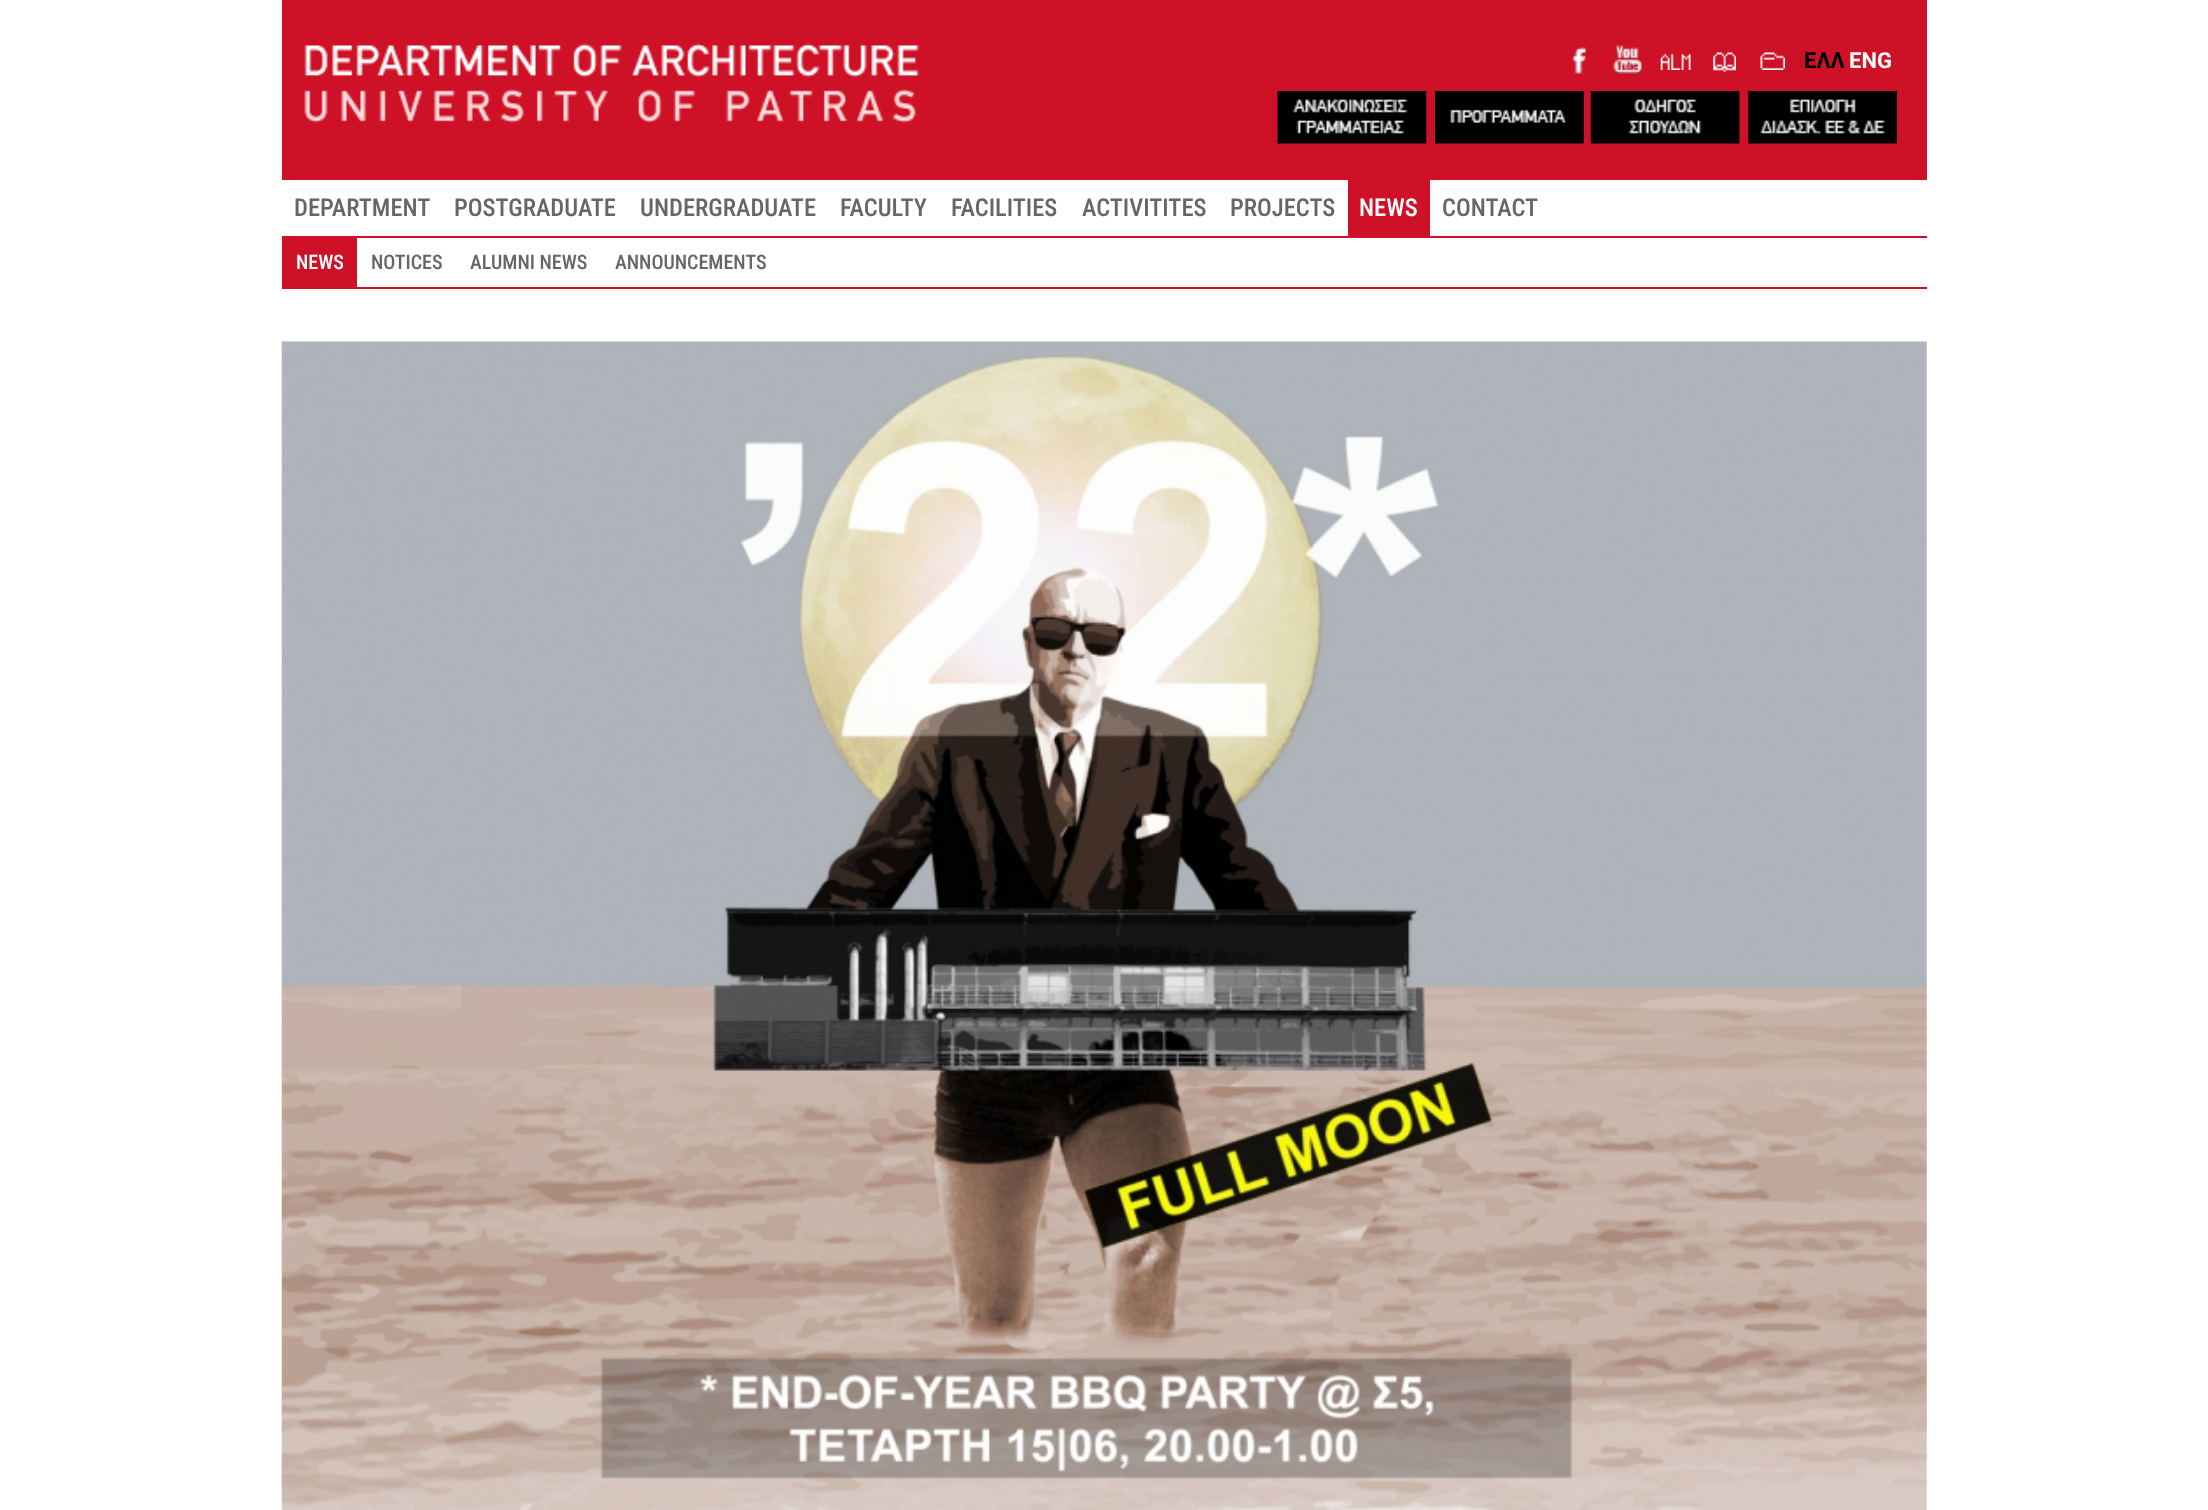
(async () => {
    const canvas = document.querySelector("canvas");
    canvas.width = 2208;
    canvas.height = 1510;
    const context = canvas.getContext("2d");
    context.miterLimit = 4;
    context.fontKerning = "normal";
    function write(s, x, y, font, color) {
        context.font = font;
        context.fillStyle = color;
        context.fillText(s, x, y);
    }
    function block(x, y, w, h, color) {
        context.fillStyle = color;
        context.fillRect(x, y, w, h);
    }
    async function photo(src, x, y, w, h) {
        const img = new Image();
        img.src = src;
        await img.decode();
        context.drawImage(img, x, y, w, h);
    }

    block(0, 0, 2208, 1510, "rgb(255, 255, 255)");
    block(282, 0, 1645, 180, "rgb(206, 17, 38)");
    await photo("media/1.png", 304, 43, 616, 80);
    await photo("media/2.png", 1572, 47, 14, 29);
    await photo("media/3.png", 1613, 45, 30, 31);
    await photo("media/4.png", 1660, 54, 31, 16);
    await photo("media/5.png", 1713, 52, 23, 20);
    await photo("media/6.png", 1760, 52, 25, 18);
    write("ΕΛΛ", 1804, 68, "bold 22px Roboto", "rgb(0, 0, 0)");
    write("ENG", 1849, 68, "bold 22px Roboto", "rgb(255, 255, 255)");
    await photo("media/7.png", 1277, 91, 150, 53);
    await photo("media/8.png", 1435, 91, 149, 53);
    await photo("media/9.png", 1590, 91, 150, 53);
    await photo("media/10.png", 1748, 91, 149, 53);
    block(282, 236, 1645, 2, "rgb(206, 17, 38)");
    write("DEPARTMENT", 294, 216, "500 24.5px Roboto Condensed", "rgb(102, 102, 102)");
    write("POSTGRADUATE", 454, 216, "500 24.5px Roboto Condensed", "rgb(102, 102, 102)");
    write("UNDERGRADUATE", 640, 216, "500 24.5px Roboto Condensed", "rgb(102, 102, 102)");
    write("FACULTY", 840, 216, "500 24.5px Roboto Condensed", "rgb(102, 102, 102)");
    write("FACILITIES", 951, 216, "500 24.5px Roboto Condensed", "rgb(102, 102, 102)");
    write("ACTIVITITES", 1082, 216, "500 24.5px Roboto Condensed", "rgb(102, 102, 102)");
    write("PROJECTS", 1230, 216, "500 24.5px Roboto Condensed", "rgb(102, 102, 102)");
    block(1348, 180, 82, 56, "rgb(206, 17, 38)");
    write("NEWS", 1359, 216, "500 24.5px Roboto Condensed", "rgb(255, 255, 255)");
    write("CONTACT", 1442, 216, "500 24.5px Roboto Condensed", "rgb(102, 102, 102)");
    block(282, 287, 1645, 2, "rgb(206, 17, 38)");
    block(282, 238, 75, 49, "rgb(206, 17, 38)");
    write("NEWS", 296, 269, "500 20px Roboto Condensed", "rgb(255, 255, 255)");
    write("NOTICES", 371, 269, "500 20px Roboto Condensed", "rgb(102, 102, 102)");
    write("ALUMNI NEWS", 470, 269, "500 20px Roboto Condensed", "rgb(102, 102, 102)");
    write("ANNOUNCEMENTS", 615, 269, "500 20px Roboto Condensed", "rgb(102, 102, 102)");
    await photo("media/11.png", 281, 341, 1646, 1169);
})();
